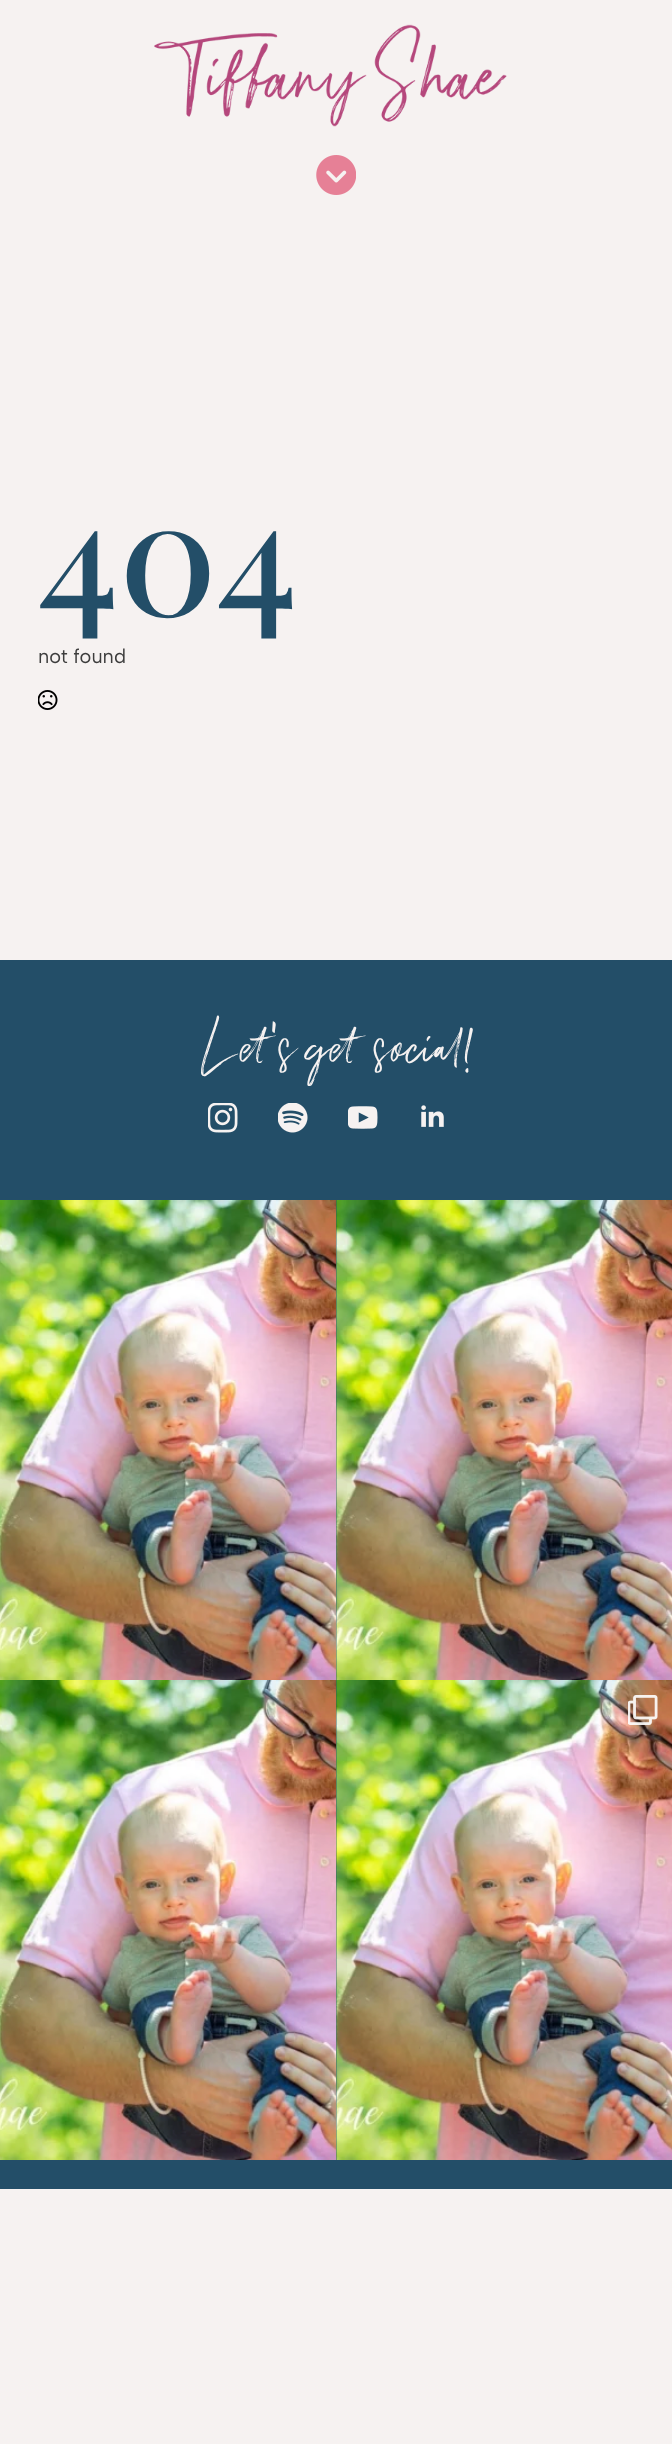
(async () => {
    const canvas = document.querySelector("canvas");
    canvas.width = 672;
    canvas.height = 2444;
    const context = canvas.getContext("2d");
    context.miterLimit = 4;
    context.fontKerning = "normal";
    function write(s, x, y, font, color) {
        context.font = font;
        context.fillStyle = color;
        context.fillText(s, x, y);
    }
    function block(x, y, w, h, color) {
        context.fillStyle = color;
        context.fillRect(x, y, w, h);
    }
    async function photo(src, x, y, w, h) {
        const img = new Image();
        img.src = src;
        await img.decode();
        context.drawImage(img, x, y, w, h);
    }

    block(0, 0, 672, 2444, "rgb(246, 242, 241)");
    await photo("media/1.png", 154, 24, 353, 103);
    await photo("media/2.png", 316, 155, 40, 40);
    write("404", 38, 616, "500 160px Playfair Display", "rgb(35, 78, 104)");
    write("not found", 38, 663, "20px Albert Sans", "rgb(61, 61, 61)");
    await photo("media/3.png", 38, 690, 20, 20);
    block(0, 960, 672, 1229, "rgb(35, 78, 104)");
    write("Let's get social!", 201, 1061, "61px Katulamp", "rgb(246, 242, 241)");
    await photo("media/4.png", 208, 1103, 30, 30);
    await photo("media/5.png", 278, 1103, 30, 30);
    await photo("media/6.png", 348, 1106, 30, 23);
    await photo("media/7.png", 421, 1105, 23, 22);
    await photo("media/8.png", 0, 1200, 337, 480);
    await photo("media/9.png", 336, 1200, 336, 480);
    await photo("media/8.png", 0, 1680, 337, 480);
    await photo("media/9.png", 336, 1680, 336, 480);
    await photo("media/10.png", 628, 1695, 30, 30);
})();
